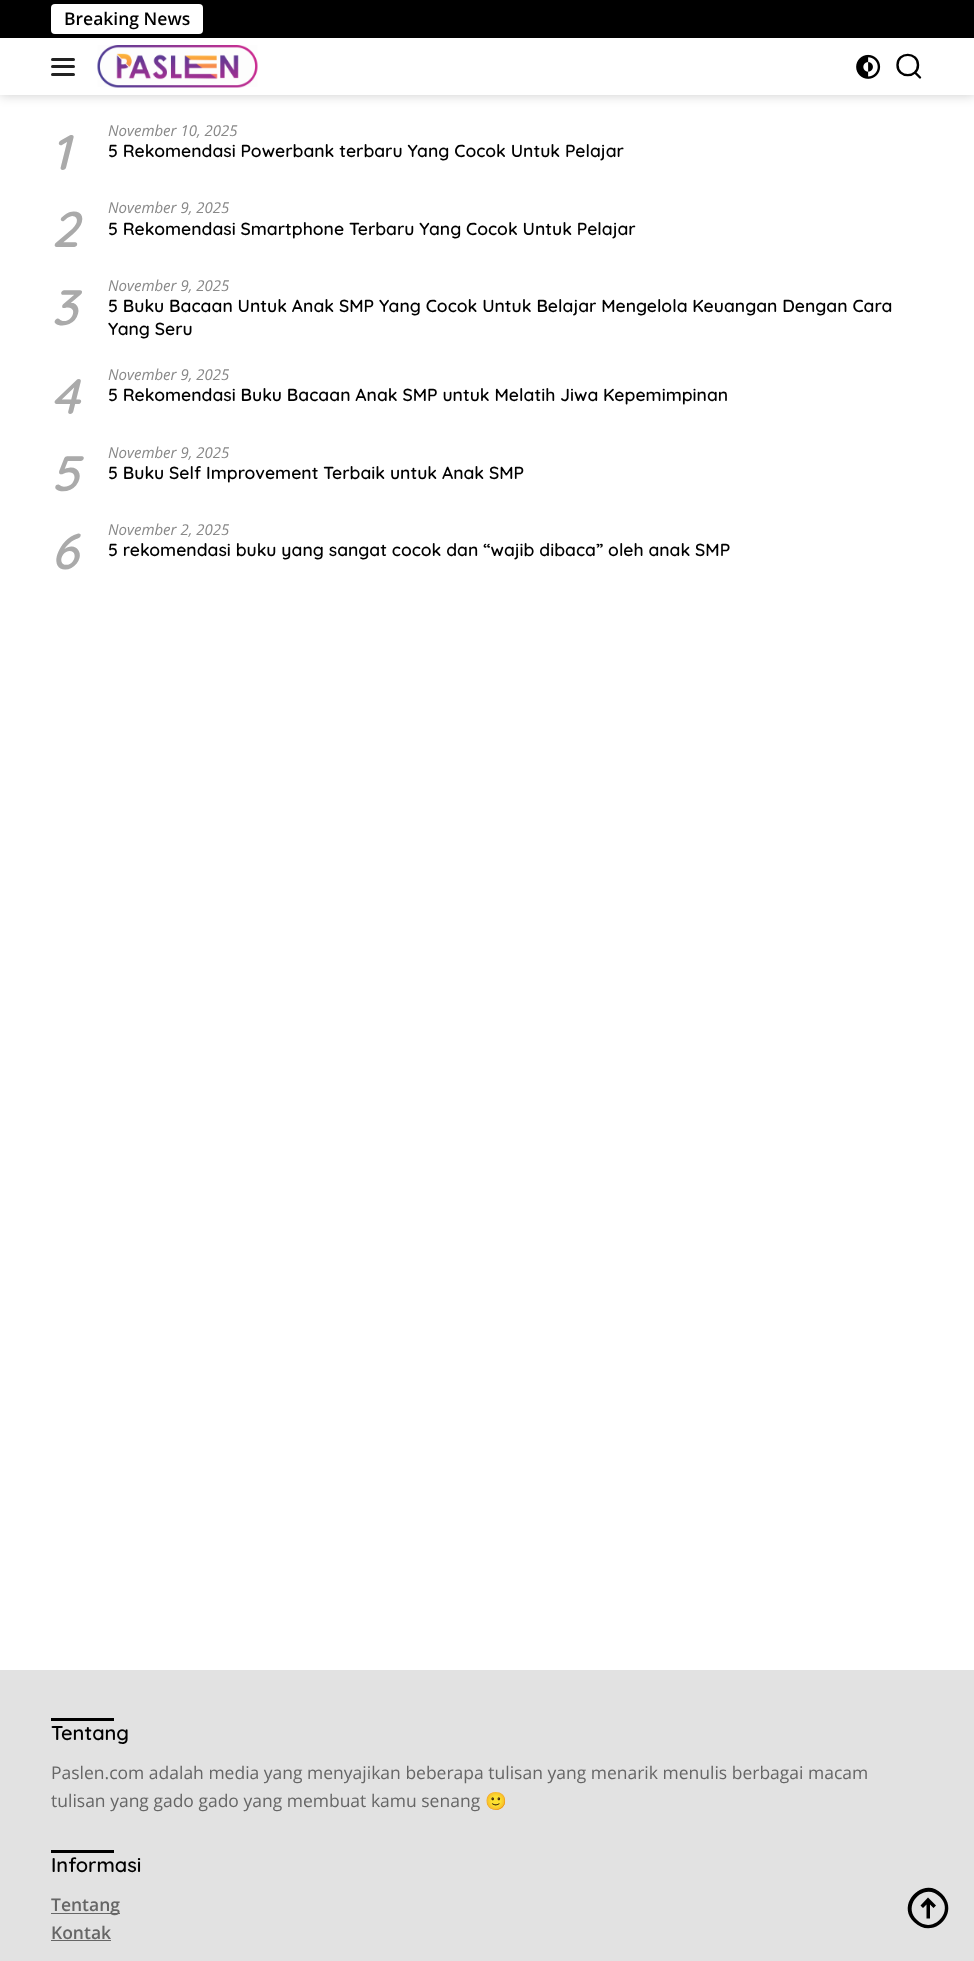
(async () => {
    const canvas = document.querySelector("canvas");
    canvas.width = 974;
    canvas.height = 1961;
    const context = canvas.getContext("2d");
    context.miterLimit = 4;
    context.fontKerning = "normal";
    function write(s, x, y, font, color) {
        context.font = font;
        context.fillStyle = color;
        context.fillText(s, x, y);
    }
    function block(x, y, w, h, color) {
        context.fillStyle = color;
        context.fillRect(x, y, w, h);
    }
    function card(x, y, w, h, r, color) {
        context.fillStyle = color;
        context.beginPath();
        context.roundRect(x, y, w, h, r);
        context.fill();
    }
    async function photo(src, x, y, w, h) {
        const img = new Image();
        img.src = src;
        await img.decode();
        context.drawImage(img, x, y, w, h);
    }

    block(0, 0, 974, 1961, "rgb(255, 255, 255)");
    context.fillStyle = "rgba(0, 0, 0, 0.2)";
    context.filter = "blur(6px)";
    context.beginPath();
    context.rect(0, 0, 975, 95);
    context.fill();
    context.filter = "none";
    block(0, 38, 974, 57, "rgb(255, 255, 255)");
    block(0, 0, 974, 38, "rgb(0, 0, 0)");
    card(51, 4, 152, 30, 4, "rgb(255, 255, 255)");
    write("Breaking News", 64, 25, "600 17.5px Open Sans", "rgb(0, 0, 0)");
    card(51, 58, 24, 3, 1.5, "rgb(34, 34, 34)");
    card(51, 65, 24, 3, 1.5, "rgb(34, 34, 34)");
    card(51, 73, 24, 3, 1.5, "rgb(34, 34, 34)");
    await photo("media/1.png", 97, 45, 161, 43);
    await photo("media/2.png", 856, 54, 25, 25);
    context.beginPath();
    context.moveTo(920, 77.5);
    context.lineTo(915, 72.5);
    context.moveTo(918, 65);
    context.bezierCurveTo(918, 78.5, 897.5, 78.5, 897.5, 65);
    context.bezierCurveTo(897.5, 51.5, 918, 51.5, 918, 65);
    context.closePath();
    context.strokeStyle = "rgb(0, 0, 0)";
    context.lineWidth = 2.4;
    context.lineCap = "round";
    context.stroke();
    write("1", 51, 170, "italic 600 50px Quicksand", "rgb(170, 170, 170)");
    write("November 10, 2025", 108, 136, "italic 15px Open Sans", "rgb(136, 136, 136)");
    write("5 Rekomendasi Powerbank terbaru Yang Cocok Untuk Pelajar", 108, 157, "600 17.5px Quicksand", "rgb(0, 0, 0)");
    write("2", 51, 247, "italic 600 50px Quicksand", "rgb(170, 170, 170)");
    write("November 9, 2025", 108, 213, "italic 15px Open Sans", "rgb(136, 136, 136)");
    write("5 Rekomendasi Smartphone Terbaru Yang Cocok Untuk Pelajar", 108, 235, "600 17.5px Quicksand", "rgb(0, 0, 0)");
    write("3", 51, 325, "italic 600 50px Quicksand", "rgb(170, 170, 170)");
    write("November 9, 2025", 108, 291, "italic 15px Open Sans", "rgb(136, 136, 136)");
    write("5 Buku Bacaan Untuk Anak SMP Yang Cocok Untuk Belajar Mengelola Keuangan Dengan Cara", 108, 312, "600 17.5px Quicksand", "rgb(0, 0, 0)");
    write("Yang Seru", 108, 335, "600 17.5px Quicksand", "rgb(0, 0, 0)");
    write("4", 51, 414, "italic 600 50px Quicksand", "rgb(170, 170, 170)");
    write("November 9, 2025", 108, 380, "italic 15px Open Sans", "rgb(136, 136, 136)");
    write("5 Rekomendasi Buku Bacaan Anak SMP untuk Melatih Jiwa Kepemimpinan", 108, 401, "600 17.5px Quicksand", "rgb(0, 0, 0)");
    write("5", 51, 491, "italic 600 50px Quicksand", "rgb(170, 170, 170)");
    write("November 9, 2025", 108, 458, "italic 15px Open Sans", "rgb(136, 136, 136)");
    write("5 Buku Self Improvement Terbaik untuk Anak SMP", 108, 479, "600 17.5px Quicksand", "rgb(0, 0, 0)");
    write("6", 51, 569, "italic 600 50px Quicksand", "rgb(170, 170, 170)");
    write("November 2, 2025", 108, 535, "italic 15px Open Sans", "rgb(136, 136, 136)");
    write("5 rekomendasi buku yang sangat cocok dan “wajib dibaca” oleh anak SMP", 108, 556, "600 17.5px Quicksand", "rgb(0, 0, 0)");
    block(0, 1670, 974, 291, "rgb(226, 226, 226)");
    block(51, 1718, 63, 3, "rgb(0, 0, 0)");
    write("Tentang", 51, 1740, "600 20px Quicksand", "rgb(0, 0, 0)");
    write("Paslen.com adalah media yang menyajikan beberapa tulisan yang menarik menulis berbagai macam", 51, 1779, "17.5px Open Sans", "rgb(102, 102, 102)");
    write("tulisan yang gado gado yang membuat kamu senang", 51, 1807, "17.5px Open Sans", "rgb(102, 102, 102)");
    write("🙂", 485, 1807, "17.5px Noto Color Emoji", "rgb(102, 102, 102)");
    block(51, 1850, 63, 3, "rgb(0, 0, 0)");
    write("Informasi", 51, 1872, "600 20px Quicksand", "rgb(0, 0, 0)");
    block(51, 1913, 69, 1, "rgb(102, 102, 102)");
    write("Tentang", 51, 1911, "600 17.5px Open Sans", "rgb(102, 102, 102)");
    write("Kontak", 51, 1939, "600 17.5px Open Sans", "rgb(102, 102, 102)");
    block(51, 1940, 60, 1, "rgb(102, 102, 102)");
    context.fillStyle = "rgb(0, 0, 0)";
    context.beginPath();
    context.moveTo(933.5, 1908);
    context.lineTo(936, 1905.5);
    context.lineTo(928, 1897.5);
    context.lineTo(920.5, 1905.5);
    context.lineTo(923, 1908);
    context.lineTo(926.5, 1904.5);
    context.lineTo(926.5, 1918.5);
    context.lineTo(930, 1918.5);
    context.lineTo(930, 1904.5);
    context.closePath();
    context.fill();
    context.beginPath();
    context.moveTo(942, 1894);
    context.bezierCurveTo(924, 1875, 895, 1904, 914, 1922);
    context.bezierCurveTo(933, 1941, 961, 1913, 942, 1894);
    context.closePath();
    context.moveTo(940, 1897);
    context.bezierCurveTo(925, 1881, 901, 1905, 917, 1920);
    context.bezierCurveTo(932, 1935, 955, 1912, 940, 1897);
    context.closePath();
    context.fill("evenodd");
})();
